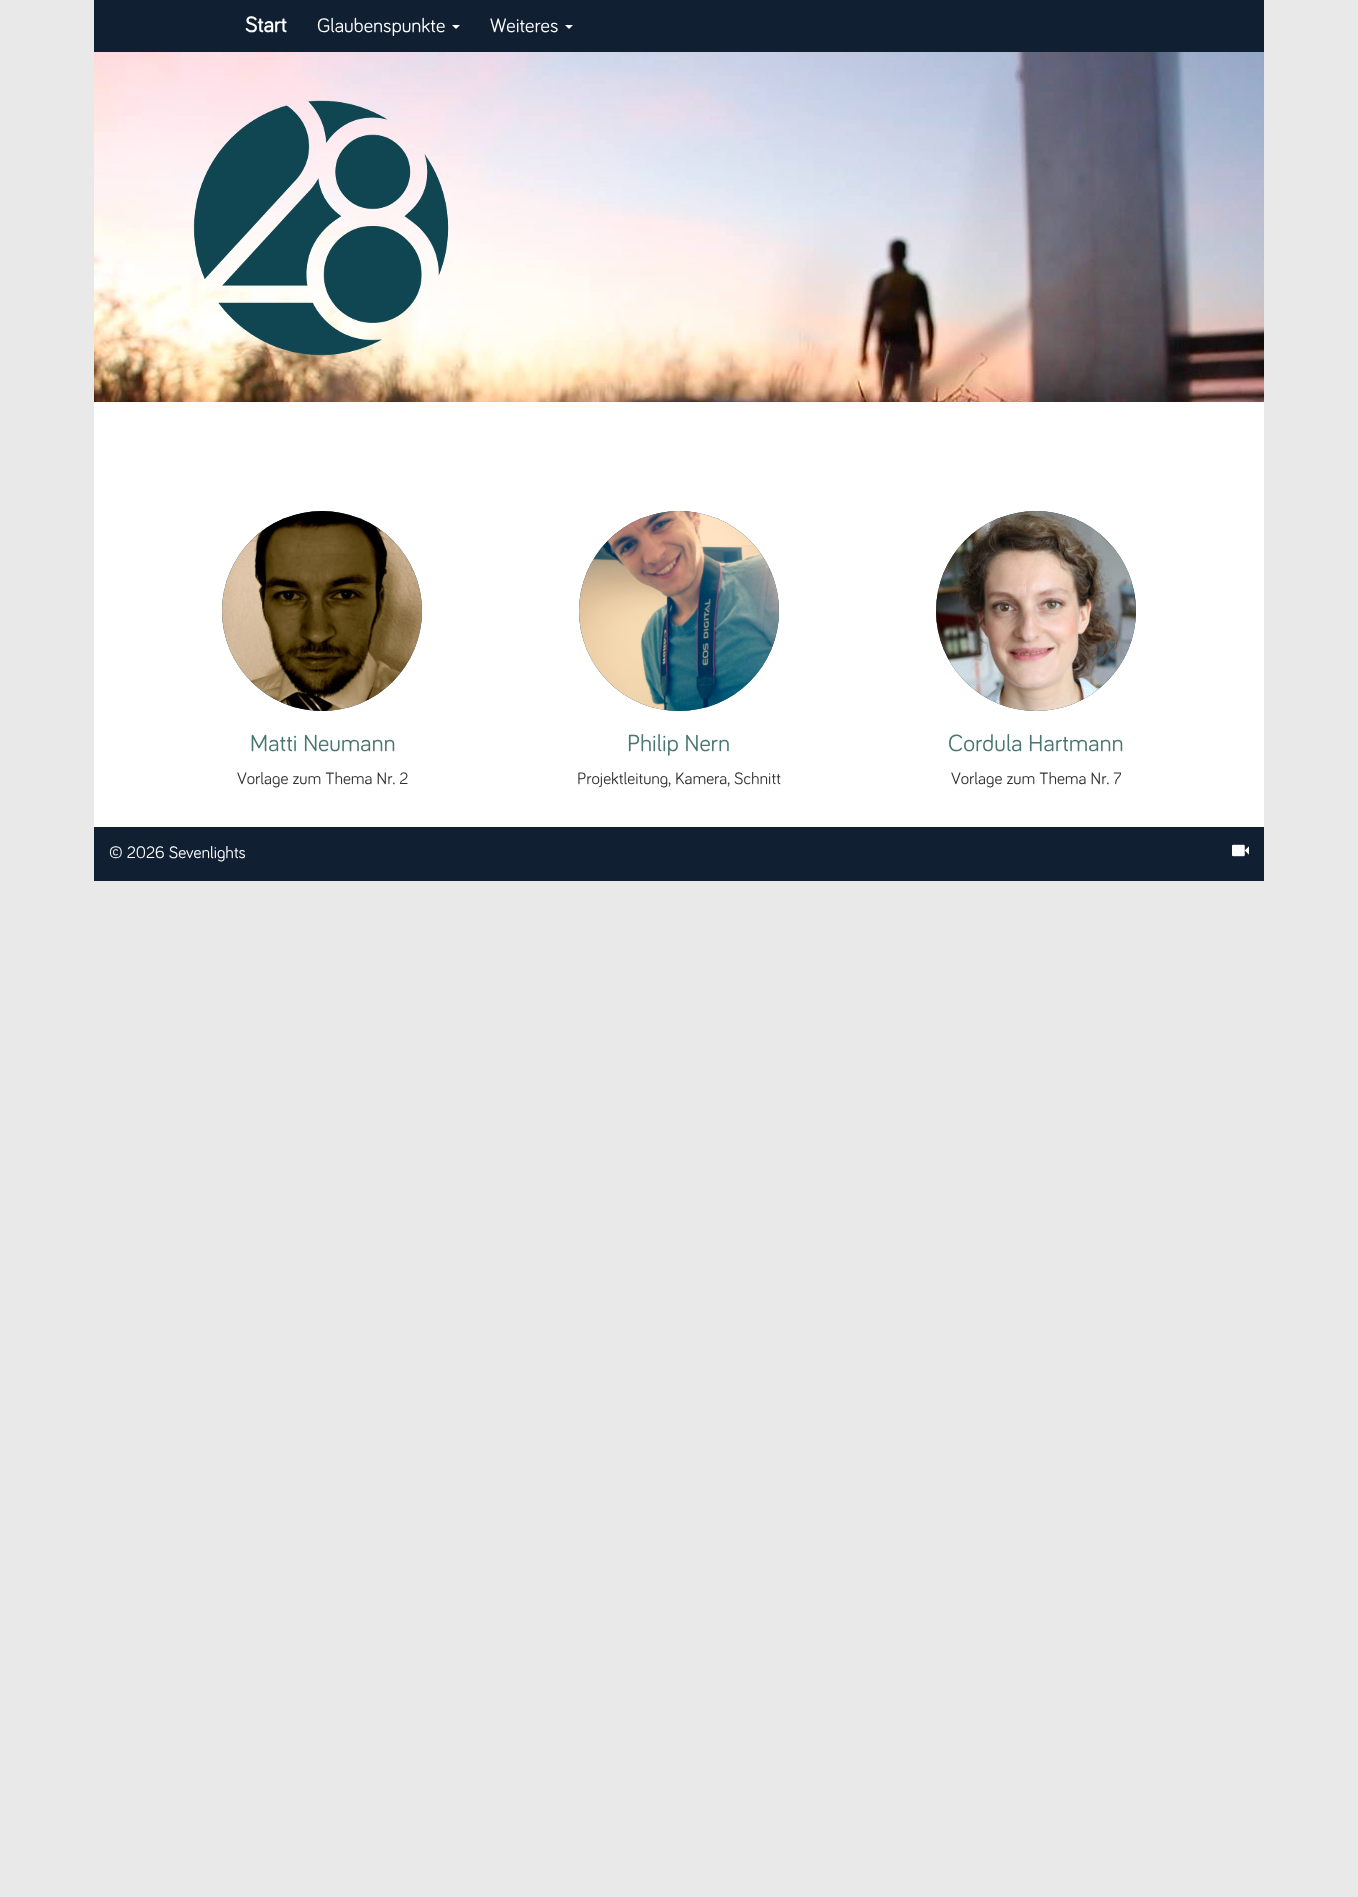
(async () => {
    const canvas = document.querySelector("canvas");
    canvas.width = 1358;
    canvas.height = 1897;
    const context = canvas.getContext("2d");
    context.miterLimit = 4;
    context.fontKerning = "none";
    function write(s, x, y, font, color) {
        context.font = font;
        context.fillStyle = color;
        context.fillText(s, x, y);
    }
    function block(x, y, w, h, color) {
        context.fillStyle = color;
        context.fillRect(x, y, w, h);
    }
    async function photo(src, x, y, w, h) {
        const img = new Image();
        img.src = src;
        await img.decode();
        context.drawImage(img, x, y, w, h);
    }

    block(0, 0, 1358, 1897, "rgb(233, 233, 233)");
    block(94, 0, 1170, 52, "rgb(17, 31, 50)");
    write("Start", 245, 32, "bold 22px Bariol", "rgb(255, 255, 255)");
    write("Glaubenspunkte", 317, 32, "20px Bariol", "rgb(255, 255, 255)");
    context.beginPath();
    context.moveTo(452, 25);
    context.lineTo(460, 25);
    context.lineTo(456, 29);
    context.closePath();
    context.fill();
    write("Weiteres", 490, 32, "20px Bariol", "rgb(255, 255, 255)");
    context.beginPath();
    context.moveTo(565, 25);
    context.lineTo(573, 25);
    context.lineTo(569, 29);
    context.closePath();
    context.fill();
    await photo("media/1.png", 94, 52, 1170, 350);
    await photo("media/2.png", 193, 100, 256, 256);
    block(94, 402, 1170, 425, "rgb(255, 255, 255)");
    context.fillStyle = "rgb(15, 70, 81)";
    context.beginPath();
    context.arc(322, 611, 100, 0, Math.PI * 2);
    context.fill();
    await photo("media/3.png", 222, 511, 200, 200);
    write("Matti Neumann", 250, 751, "24px Bariol", "rgb(73, 118, 111)");
    write("Vorlage zum Thema Nr. 2", 237, 784, "17px Bariol", "rgb(51, 51, 51)");
    context.fillStyle = "rgb(15, 70, 81)";
    context.beginPath();
    context.arc(679, 611, 100, 0, Math.PI * 2);
    context.fill();
    await photo("media/4.png", 579, 511, 200, 200);
    write("Philip Nern", 627, 751, "24px Bariol", "rgb(73, 118, 111)");
    write("Projektleitung, Kamera, Schnitt", 577, 784, "17px Bariol", "rgb(51, 51, 51)");
    context.fillStyle = "rgb(15, 70, 81)";
    context.beginPath();
    context.arc(1036, 611, 100, 0, Math.PI * 2);
    context.fill();
    await photo("media/5.png", 936, 511, 200, 200);
    write("Cordula Hartmann", 948, 751, "24px Bariol", "rgb(73, 118, 111)");
    write("Vorlage zum Thema Nr. 7", 951, 784, "17px Bariol", "rgb(51, 51, 51)");
    block(94, 827, 1170, 54, "rgb(17, 31, 50)");
    write("© 2026 Sevenlights", 109, 858, "17px Bariol", "rgb(255, 255, 255)");
    await photo("media/6.png", 1232, 844, 17, 13);
})();
